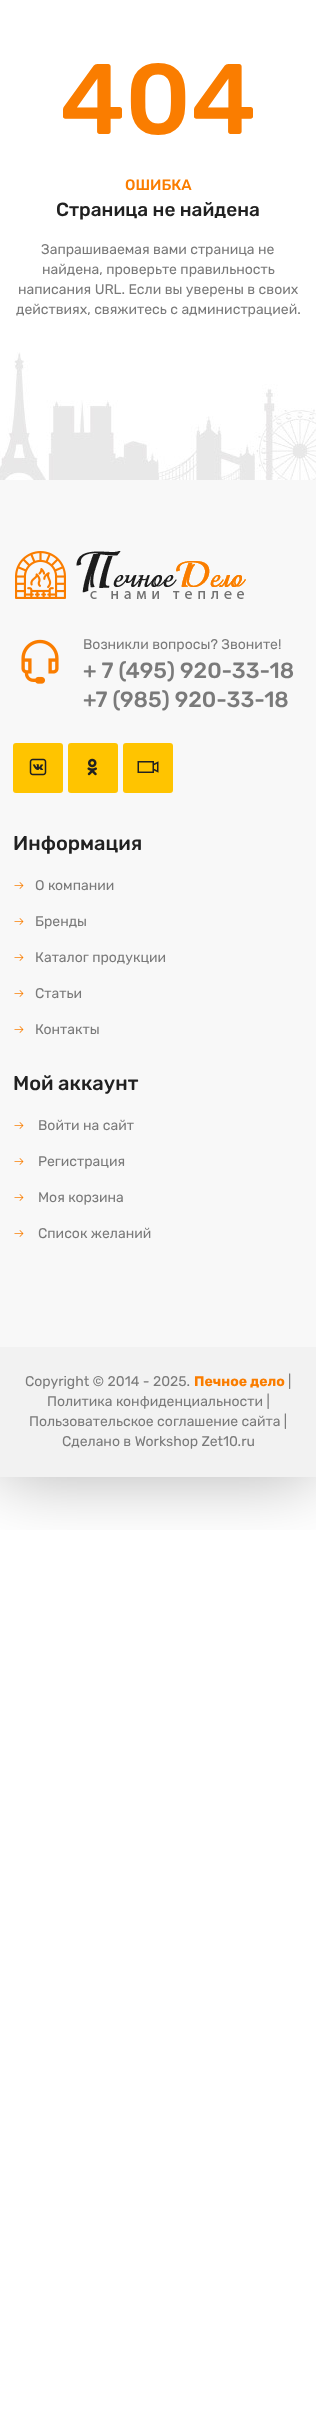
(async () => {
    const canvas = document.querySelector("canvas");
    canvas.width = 316;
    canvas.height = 2414;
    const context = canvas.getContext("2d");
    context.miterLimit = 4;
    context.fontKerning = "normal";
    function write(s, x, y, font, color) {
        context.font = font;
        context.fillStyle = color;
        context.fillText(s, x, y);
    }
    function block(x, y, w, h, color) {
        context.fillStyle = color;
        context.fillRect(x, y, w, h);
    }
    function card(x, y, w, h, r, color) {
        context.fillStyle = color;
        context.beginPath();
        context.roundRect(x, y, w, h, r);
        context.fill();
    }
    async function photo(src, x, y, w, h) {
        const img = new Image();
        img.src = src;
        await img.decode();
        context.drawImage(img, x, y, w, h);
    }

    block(0, 0, 316, 2414, "rgb(255, 255, 255)");
    context.save();
    context.beginPath();
    context.rect(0, 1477, 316, 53);
    context.clip();
    context.fillStyle = "rgba(0, 0, 0, 0.3)";
    context.filter = "blur(35px)";
    context.beginPath();
    context.rect(0, 0, 316, 1477);
    context.fill();
    context.filter = "none";
    context.restore();
    await photo("media/1.png", 0, 352, 316, 128);
    write("404", 60, 134, "500 100px Rubik", "rgb(250, 125, 0)");
    write("ОШИБКА", 125, 190, "500 15px Rubik", "rgb(250, 125, 0)");
    write("Страница не найдена", 56, 216, "500 19px Rubik", "rgb(33, 33, 33)");
    write("Запрашиваемая вами страница не", 41, 254, "14px Rubik", "rgb(122, 122, 122)");
    write("найдена, проверьте правильность", 42, 274, "14px Rubik", "rgb(122, 122, 122)");
    write("написания URL. Если вы уверены в своих", 18, 294, "14px Rubik", "rgb(122, 122, 122)");
    write("действиях, свяжитесь с администрацией.", 16, 314, "14px Rubik", "rgb(122, 122, 122)");
    block(0, 480, 316, 867, "rgb(248, 248, 248)");
    await photo("media/2.png", 15, 551, 231, 48);
    await photo("media/3.png", 21, 639, 38, 45);
    write("Возникли вопросы? Звоните!", 83, 649, "14px Rubik", "rgb(122, 122, 122)");
    write("+ 7 (495) 920-33-18", 83, 678, "500 22px Rubik", "rgb(122, 122, 122)");
    write("+7 (985) 920-33-18", 83, 707, "500 22px Rubik", "rgb(122, 122, 122)");
    card(13, 743, 50, 50, 3, "rgb(255, 196, 0)");
    await photo("media/4.png", 29, 758, 18, 18);
    card(68, 743, 50, 50, 3, "rgb(255, 196, 0)");
    await photo("media/5.png", 87, 758, 10, 18);
    card(123, 743, 50, 50, 3, "rgb(255, 196, 0)");
    await photo("media/6.png", 137, 761, 22, 12);
    write("Информация", 13, 850, "500 20px Rubik", "rgb(33, 33, 33)");
    await photo("media/7.png", 14, 882, 10, 7);
    write("О компании", 35, 890, "14px Rubik", "rgb(122, 122, 122)");
    await photo("media/7.png", 14, 918, 10, 7);
    write("Бренды", 35, 926, "14px Rubik", "rgb(122, 122, 122)");
    await photo("media/7.png", 14, 954, 10, 7);
    write("Каталог продукции", 35, 962, "14px Rubik", "rgb(122, 122, 122)");
    await photo("media/7.png", 14, 990, 10, 7);
    write("Статьи", 35, 998, "14px Rubik", "rgb(122, 122, 122)");
    await photo("media/7.png", 14, 1026, 10, 7);
    write("Контакты", 35, 1034, "14px Rubik", "rgb(122, 122, 122)");
    write("Мой аккаунт", 13, 1090, "500 20px Rubik", "rgb(33, 33, 33)");
    await photo("media/7.png", 14, 1122, 10, 7);
    write("Войти на сайт", 38, 1130, "14px Rubik", "rgb(122, 122, 122)");
    await photo("media/7.png", 14, 1158, 10, 7);
    write("Регистрация", 38, 1166, "14px Rubik", "rgb(122, 122, 122)");
    await photo("media/7.png", 14, 1194, 10, 7);
    write("Моя корзина", 38, 1202, "14px Rubik", "rgb(122, 122, 122)");
    await photo("media/7.png", 14, 1230, 10, 7);
    write("Список желаний", 38, 1238, "14px Rubik", "rgb(122, 122, 122)");
    block(0, 1347, 316, 130, "rgb(242, 242, 242)");
    write("Copyright © 2014 - 2025.", 25, 1386, "14px Rubik", "rgb(122, 122, 122)");
    write("Печное дело", 194, 1386, "bold 14px Rubik", "rgb(250, 125, 0)");
    write("|", 288, 1386, "14px Rubik", "rgb(122, 122, 122)");
    write("Политика конфиденциальности |", 47, 1406, "14px Rubik", "rgb(122, 122, 122)");
    write("Пользовательское соглашение сайта |", 29, 1426, "14px Rubik", "rgb(122, 122, 122)");
    write("Сделано в Workshop Zet10.ru", 62, 1446, "14px Rubik", "rgb(122, 122, 122)");
})();
